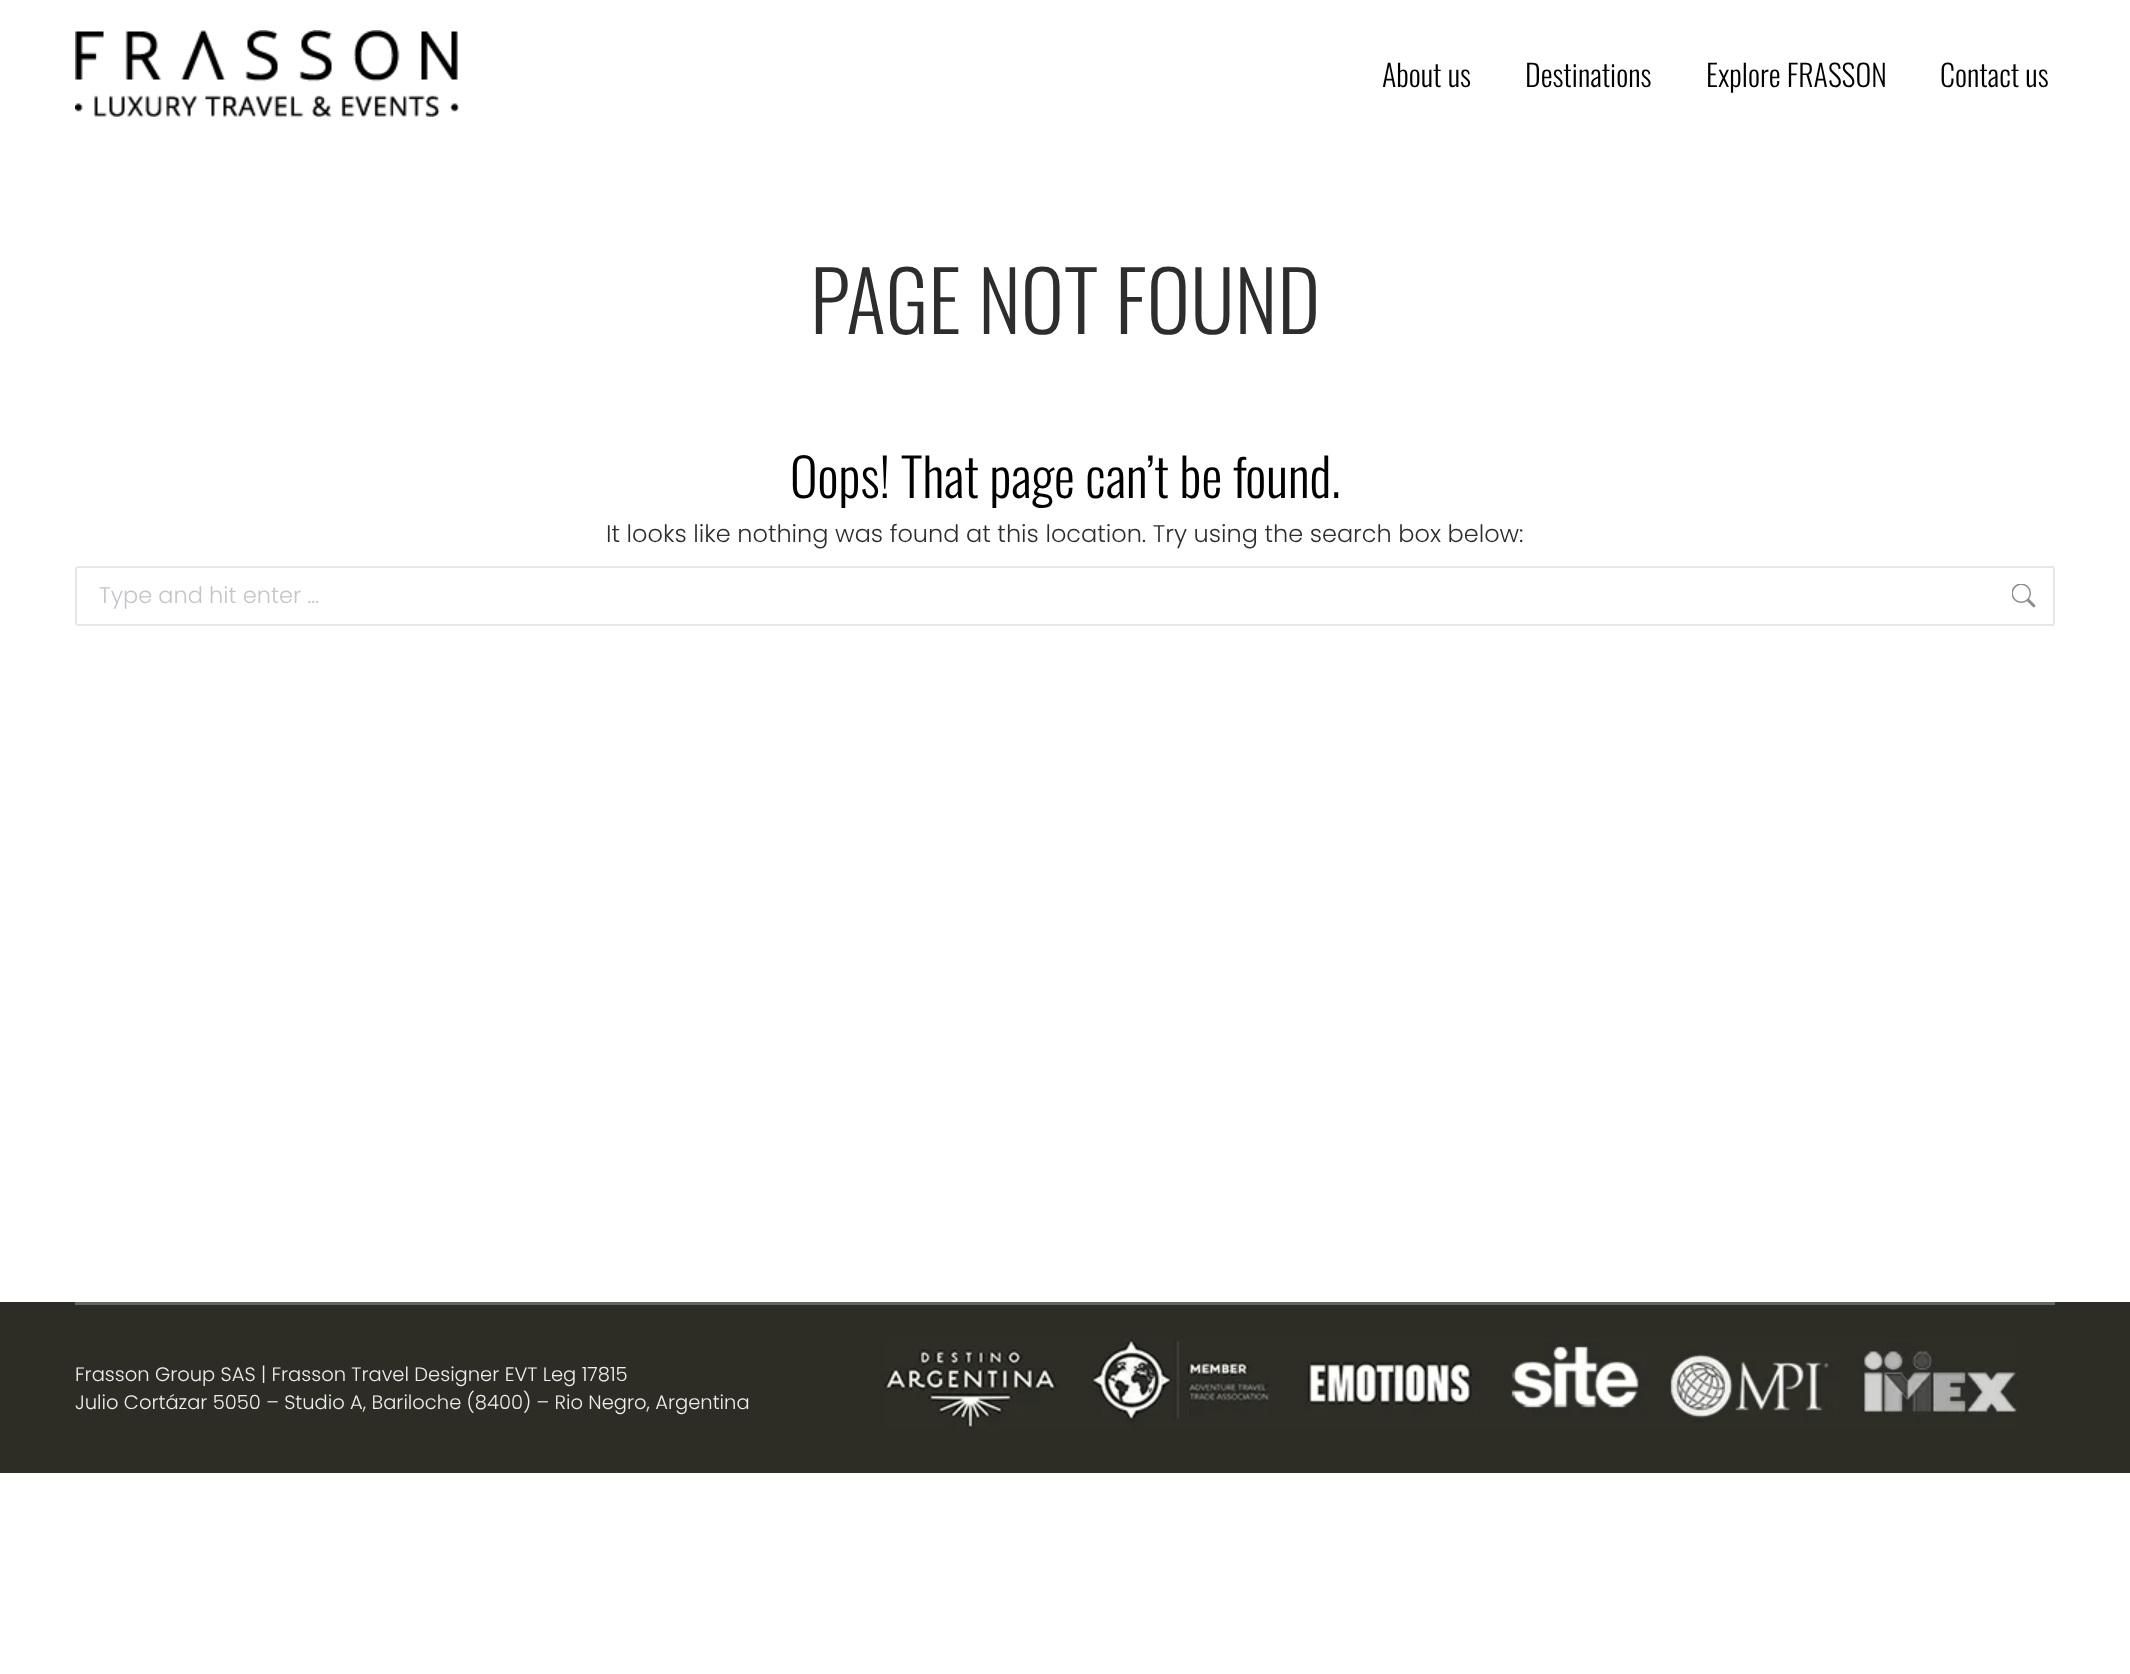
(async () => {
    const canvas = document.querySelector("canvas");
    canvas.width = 2130;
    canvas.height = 1674;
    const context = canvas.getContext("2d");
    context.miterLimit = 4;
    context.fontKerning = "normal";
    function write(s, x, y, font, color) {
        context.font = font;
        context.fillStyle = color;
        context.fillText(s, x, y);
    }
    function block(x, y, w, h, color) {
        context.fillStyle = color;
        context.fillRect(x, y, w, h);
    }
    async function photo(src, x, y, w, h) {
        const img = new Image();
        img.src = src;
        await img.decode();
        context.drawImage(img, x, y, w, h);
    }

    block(0, 0, 2130, 1674, "rgb(255, 255, 255)");
    await photo("media/1.png", 75, 30, 384, 87);
    write("About us", 1382, 87, "300 30px Oswald", "rgb(0, 0, 0)");
    write("Destinations", 1525, 87, "300 30px Oswald", "rgb(0, 0, 0)");
    write("Explore FRASSON", 1706, 87, "300 30px Oswald", "rgb(0, 0, 0)");
    write("Contact us", 1940, 87, "300 30px Oswald", "rgb(0, 0, 0)");
    write("PAGE NOT FOUND", 810, 334, "300 82.5px Oswald", "rgb(45, 45, 45)");
    write("Oops! That page can’t be found.", 790, 498, "300 52.5px Oswald", "rgb(0, 0, 0)");
    write("It looks like nothing was found at this location. Try using the search box below:", 606, 542, "300 24px Poppins", "rgb(45, 45, 45)");
    context.beginPath();
    context.roundRect(76, 567, 1978, 58, 2);
    context.strokeStyle = "rgb(231, 231, 231)";
    context.lineWidth = 2;
    context.stroke();
    write("Type and hit enter …", 99, 603, "300 22.5px Poppins", "rgb(196, 197, 201)");
    await photo("media/2.png", 2012, 584, 24, 24);
    block(0, 1302, 2130, 171, "rgb(45, 45, 38)");
    block(75, 1302, 1980, 3, "rgb(102, 102, 97)");
    write("Frasson Group SAS | Frasson Travel Designer EVT Leg 17815", 75, 1381, "300 19.5px Poppins", "rgb(238, 238, 238)");
    write("Julio Cortázar 5050 – Studio A, Bariloche (8400) – Rio Negro, Argentina", 75, 1409, "300 19.5px Poppins", "rgb(238, 238, 238)");
    await photo("media/3.png", 884, 1338, 1135, 91);
})();
